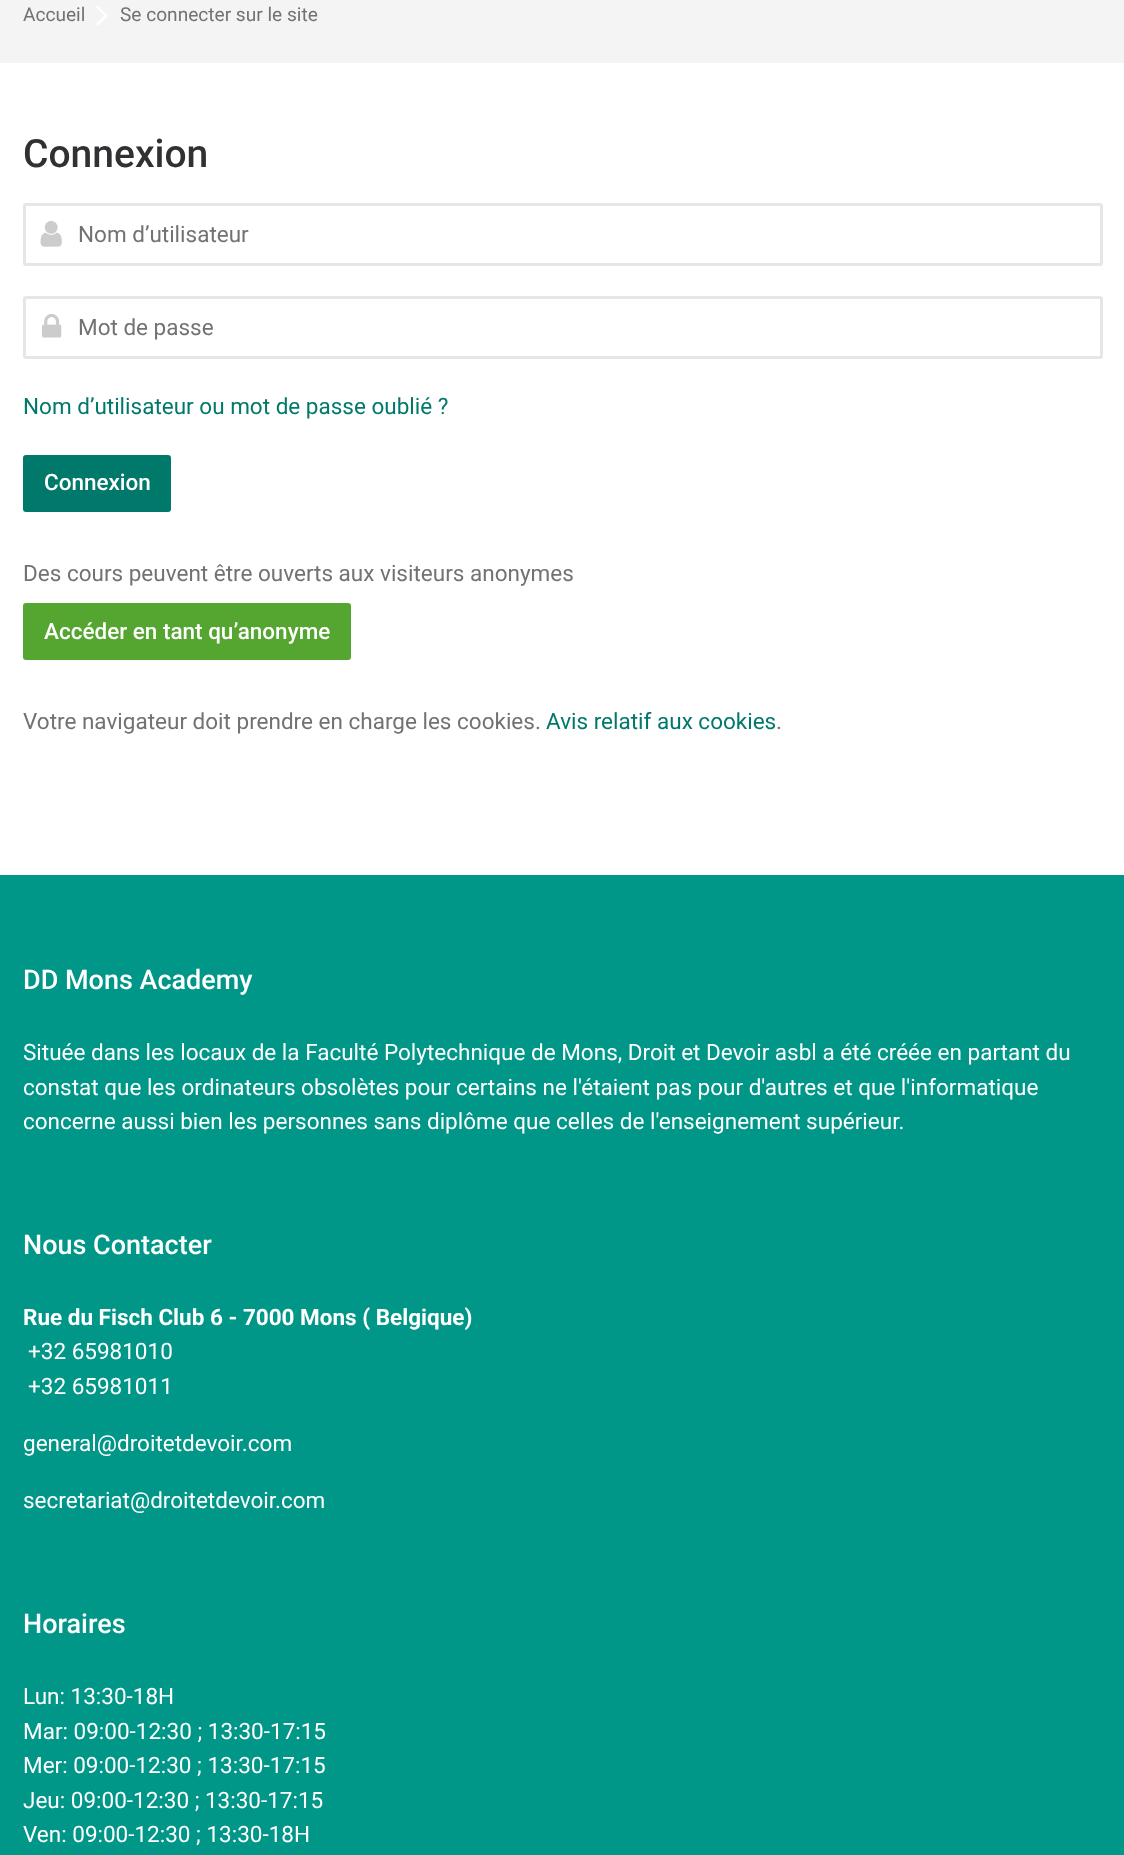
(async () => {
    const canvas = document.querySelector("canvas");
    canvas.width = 1124;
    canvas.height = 1855;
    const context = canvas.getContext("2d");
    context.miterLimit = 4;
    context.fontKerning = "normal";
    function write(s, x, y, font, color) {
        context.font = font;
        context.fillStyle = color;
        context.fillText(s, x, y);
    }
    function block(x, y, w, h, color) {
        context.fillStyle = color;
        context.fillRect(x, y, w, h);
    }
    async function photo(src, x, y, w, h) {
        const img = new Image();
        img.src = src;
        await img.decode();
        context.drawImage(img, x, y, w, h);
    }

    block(0, 0, 1124, 1855, "rgb(244, 244, 244)");
    write("Accueil", 23, 21, "19.1px Roboto", "rgb(114, 114, 114)");
    await photo("media/1.png", 96, 6, 12, 19);
    write("Se connecter sur le site", 120, 21, "19.1px Roboto", "rgb(114, 114, 114)");
    block(0, 63, 1124, 812, "rgb(255, 255, 255)");
    write("Connexion", 23, 167, "500 39px Roboto", "rgb(48, 49, 51)");
    context.beginPath();
    context.roundRect(24.5, 204.5, 1077, 60, 1.5);
    context.strokeStyle = "rgb(230, 230, 230)";
    context.lineWidth = 3;
    context.stroke();
    await photo("media/2.png", 40, 221, 22, 26);
    write("Nom d’utilisateur", 78, 242, "22.5px Roboto", "rgb(114, 114, 114)");
    context.beginPath();
    context.roundRect(24.5, 297.5, 1077, 60, 1.5);
    context.stroke();
    await photo("media/3.png", 42, 314, 20, 24);
    write("Mot de passe", 78, 335, "22.5px Roboto", "rgb(114, 114, 114)");
    write("Nom d’utilisateur ou mot de passe oublié ?", 23, 414, "22.5px Roboto", "rgb(0, 121, 107)");
    context.beginPath();
    context.roundRect(24.5, 456.5, 145, 54, 1.5);
    context.fill();
    context.strokeStyle = "rgb(0, 121, 107)";
    context.stroke();
    write("Connexion", 44, 490, "500 22.5px Roboto", "rgb(255, 255, 255)");
    write("Des cours peuvent être ouverts aux visiteurs anonymes", 23, 581, "22.5px Roboto", "rgb(114, 114, 114)");
    context.fillStyle = "rgb(85, 166, 48)";
    context.beginPath();
    context.roundRect(24.5, 604.5, 325, 54, 1.5);
    context.fill();
    context.strokeStyle = "rgb(85, 166, 48)";
    context.stroke();
    write("Accéder en tant qu’anonyme", 44, 639, "500 22.5px Roboto", "rgb(255, 255, 255)");
    write("Votre navigateur doit prendre en charge les cookies.", 23, 729, "22.5px Roboto", "rgb(114, 114, 114)");
    write("Avis relatif aux cookies", 546, 729, "22.5px Roboto", "rgb(0, 121, 107)");
    write(".", 776, 729, "22.5px Roboto", "rgb(114, 114, 114)");
    block(0, 875, 1124, 980, "rgb(0, 150, 136)");
    write("DD Mons Academy", 23, 989, "500 27px Roboto", "rgb(255, 255, 255)");
    write("Située dans les locaux de la Faculté Polytechnique de Mons, Droit et Devoir asbl a été créée en partant du", 23, 1060, "22.5px Roboto", "rgb(255, 255, 255)");
    write("constat que les ordinateurs obsolètes pour certains ne l'étaient pas pour d'autres et que l'informatique", 23, 1095, "22.5px Roboto", "rgb(255, 255, 255)");
    write("concerne aussi bien les personnes sans diplôme que celles de l'enseignement supérieur.", 23, 1129, "22.5px Roboto", "rgb(255, 255, 255)");
    write("Nous Contacter", 23, 1254, "500 27px Roboto", "rgb(255, 255, 255)");
    write("Rue du Fisch Club 6 - 7000 Mons ( Belgique)", 23, 1325, "bold 22.5px Roboto", "rgb(255, 255, 255)");
    write("+32 65981010", 28, 1359, "22.5px Roboto", "rgb(255, 255, 255)");
    write("+32 65981011", 28, 1394, "22.5px Roboto", "rgb(255, 255, 255)");
    write("general@droitetdevoir.com", 23, 1451, "22.5px Roboto", "rgb(255, 255, 255)");
    write("secretariat@droitetdevoir.com", 23, 1508, "22.5px Roboto", "rgb(255, 255, 255)");
    write("Horaires", 23, 1633, "500 27px Roboto", "rgb(255, 255, 255)");
    write("Lun: 13:30-18H", 23, 1704, "22.5px Roboto", "rgb(255, 255, 255)");
    write("Mar: 09:00-12:30 ; 13:30-17:15", 23, 1739, "22.5px Roboto", "rgb(255, 255, 255)");
    write("Mer: 09:00-12:30 ; 13:30-17:15", 23, 1773, "22.5px Roboto", "rgb(255, 255, 255)");
    write("Jeu: 09:00-12:30 ; 13:30-17:15", 23, 1808, "22.5px Roboto", "rgb(255, 255, 255)");
    write("Ven: 09:00-12:30 ; 13:30-18H", 23, 1842, "22.5px Roboto", "rgb(255, 255, 255)");
})();
